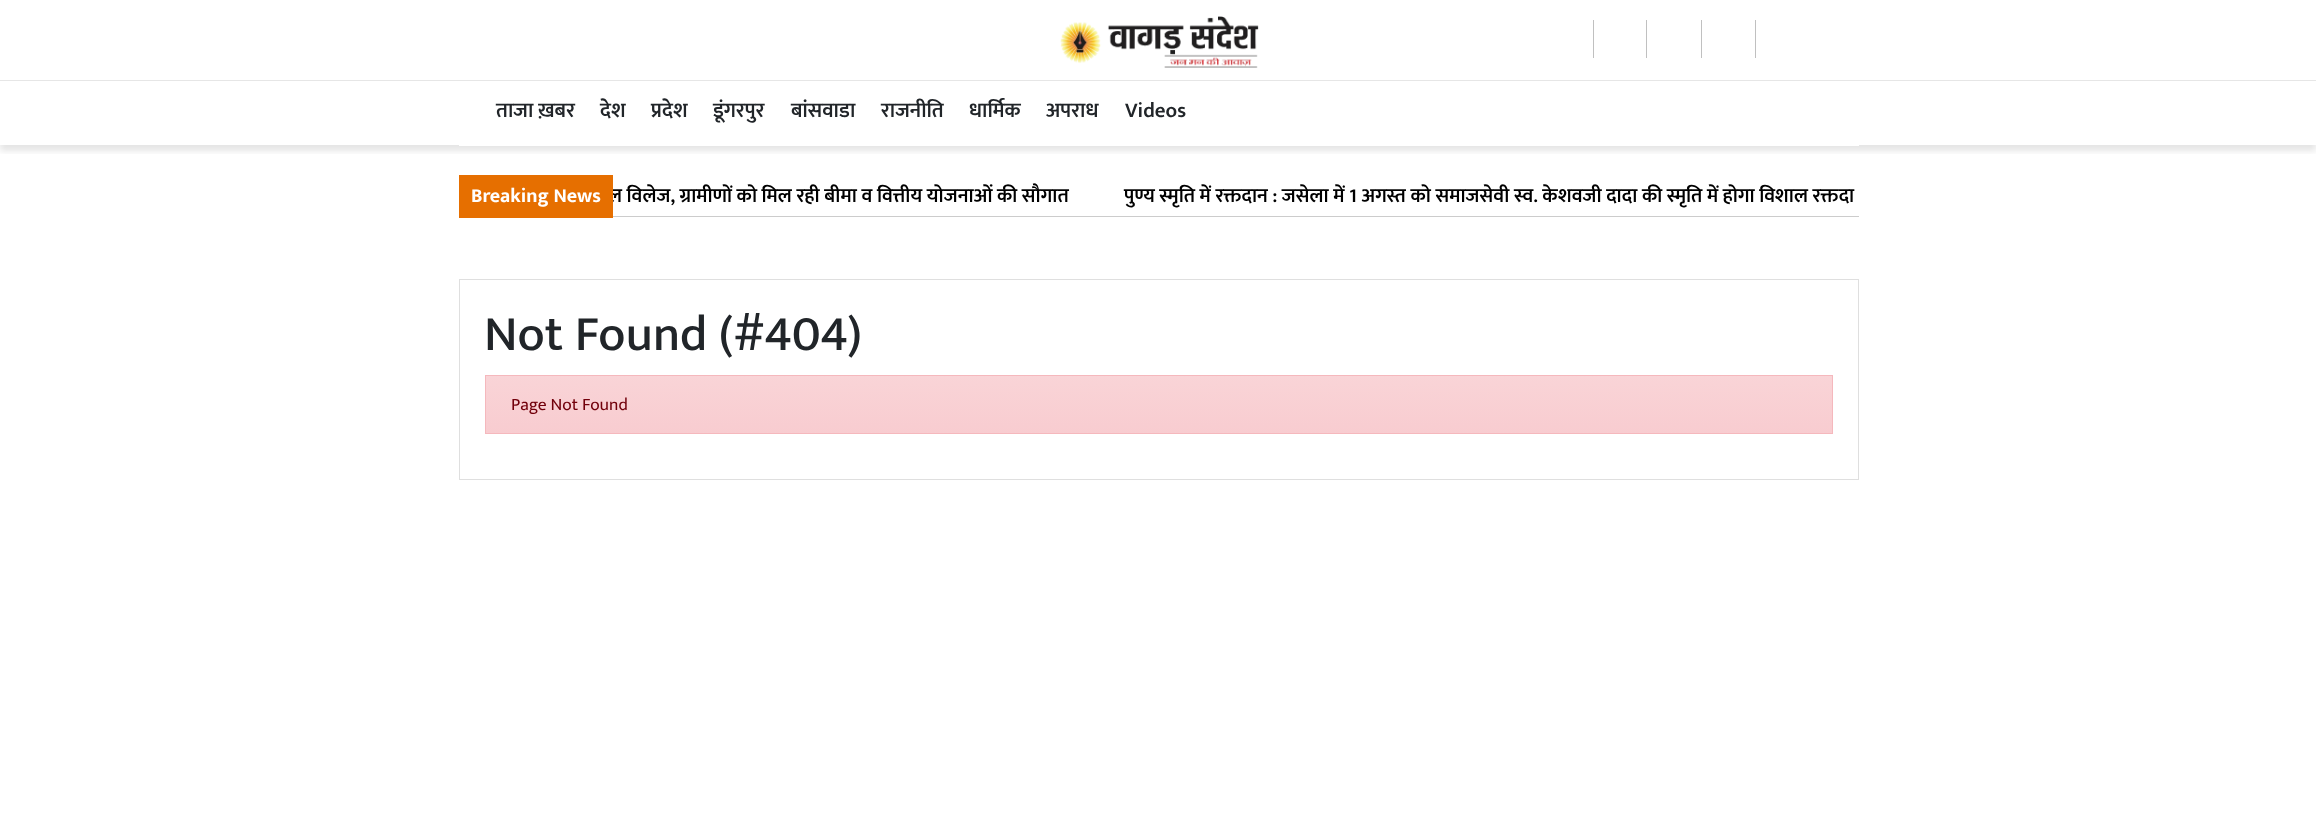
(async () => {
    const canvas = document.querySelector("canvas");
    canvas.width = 2316;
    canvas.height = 838;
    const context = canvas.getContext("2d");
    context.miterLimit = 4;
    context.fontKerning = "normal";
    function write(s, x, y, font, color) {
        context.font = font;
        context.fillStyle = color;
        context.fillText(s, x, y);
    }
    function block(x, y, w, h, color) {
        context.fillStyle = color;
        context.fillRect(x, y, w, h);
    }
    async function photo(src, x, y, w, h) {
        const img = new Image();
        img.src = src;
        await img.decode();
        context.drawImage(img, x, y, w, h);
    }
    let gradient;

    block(0, 0, 2316, 838, "rgb(255, 255, 255)");
    await photo("media/1.png", 1060, 16, 199, 52);
    block(1593, 20, 1, 38, "rgb(192, 192, 192)");
    block(1646, 20, 1, 38, "rgb(192, 192, 192)");
    block(1701, 20, 1, 38, "rgb(192, 192, 192)");
    block(1755, 20, 1, 38, "rgb(192, 192, 192)");
    context.save();
    context.beginPath();
    context.rect(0, 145, 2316, 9);
    context.clip();
    context.fillStyle = "rgba(0, 0, 0, 0.1)";
    context.filter = "blur(3px)";
    context.beginPath();
    context.rect(0, 86, 2316, 65);
    context.fill();
    context.filter = "none";
    context.restore();
    block(0, 80, 2316, 1, "rgb(230, 230, 230)");
    write("ताजा ख़बर", 496, 117, "600 21px Mukta", "rgb(33, 37, 41)");
    write("देश", 600, 117, "600 21px Mukta", "rgb(33, 37, 41)");
    write("प्रदेश", 651, 117, "600 21px Mukta", "rgb(33, 37, 41)");
    write("डूंगरपुर", 713, 117, "600 21px Mukta", "rgb(33, 37, 41)");
    write("बांसवाडा", 791, 117, "600 21px Mukta", "rgb(33, 37, 41)");
    write("राजनीति", 881, 117, "600 21px Mukta", "rgb(33, 37, 41)");
    write("धार्मिक", 969, 117, "600 21px Mukta", "rgb(33, 37, 41)");
    write("अपराध", 1046, 117, "600 21px Mukta", "rgb(33, 37, 41)");
    write("Videos", 1125, 117, "600 21px Mukta", "rgb(33, 37, 41)");
    block(459, 145, 1400, 1, "rgb(255, 255, 255)");
    block(613, 216, 1246, 1, "rgb(204, 204, 204)");
    write("ल विलेज, ग्रामीणों को मिल रही बीमा व वित्तीय योजनाओं की सौगात", 608, 202, "600 20px Mukta", "rgb(0, 0, 0)");
    block(459, 175, 154, 43, "rgb(230, 111, 0)");
    write("Breaking News", 471, 202, "bold 20px Mukta", "rgb(255, 255, 255)");
    write("पुण्य स्मृति में रक्तदान : जसेला में 1 अगस्त को समाजसेवी स्व. केशवजी दादा की स्मृति में होगा विशाल रक्तदा", 1124, 202, "600 20px Mukta", "rgb(0, 0, 0)");
    context.strokeStyle = "rgb(223, 223, 223)";
    context.strokeRect(459.5, 279.5, 1399, 200);
    write("Not Found (#404)", 484, 350, "500 50px Mukta", "rgb(33, 37, 41)");
    gradient = context.createLinearGradient(1159, 376, 1159, 433);
    gradient.addColorStop(0, "rgb(249, 212, 215)");
    gradient.addColorStop(1, "rgb(248, 204, 208)");
    context.fillStyle = gradient;
    context.fillRect(486, 376, 1346, 57);
    context.strokeStyle = "rgb(245, 184, 189)";
    context.strokeRect(485.5, 375.5, 1347, 58);
    write("Page Not Found", 511, 410, "17.5px Mukta", "rgb(114, 0, 11)");
})();
